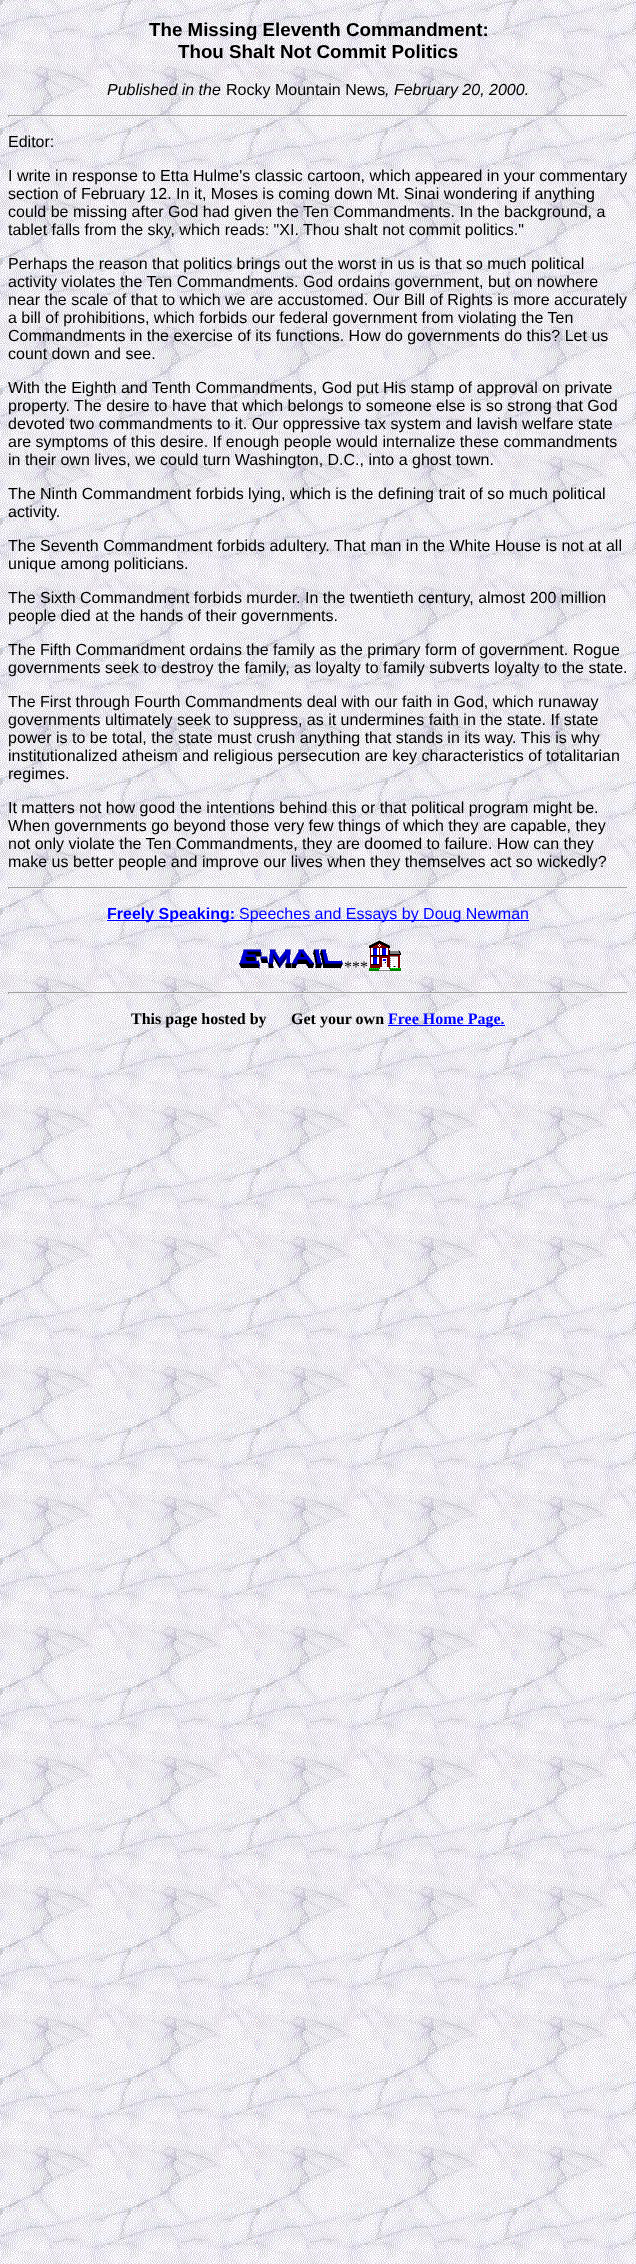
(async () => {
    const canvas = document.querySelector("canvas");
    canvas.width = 636;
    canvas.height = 2264;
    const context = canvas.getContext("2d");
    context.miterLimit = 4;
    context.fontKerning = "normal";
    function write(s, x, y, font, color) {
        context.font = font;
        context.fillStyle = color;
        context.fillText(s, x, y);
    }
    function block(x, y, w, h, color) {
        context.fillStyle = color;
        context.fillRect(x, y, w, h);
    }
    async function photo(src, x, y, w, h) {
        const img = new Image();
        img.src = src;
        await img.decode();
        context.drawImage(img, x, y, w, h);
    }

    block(0, 0, 636, 2264, "rgb(255, 255, 255)");
    await photo("media/1.png", 0, 0, 636, 2264);
    write("The Missing Eleventh Commandment:", 149, 36, "bold 18.75px Liberation Sans", "rgb(0, 0, 0)");
    write("Thou Shalt Not Commit Politics", 178, 58, "bold 18.75px Liberation Sans", "rgb(0, 0, 0)");
    write("Published in the", 107, 95, "italic 16px Liberation Sans", "rgb(0, 0, 0)");
    write("Rocky Mountain News", 226, 95, "16px Liberation Sans", "rgb(0, 0, 0)");
    write(", February 20, 2000.", 385, 95, "italic 16px Liberation Sans", "rgb(0, 0, 0)");
    block(8, 115, 620, 1, "rgb(159, 159, 159)");
    block(627, 115, 1, 2, "rgb(238, 238, 238)");
    block(8, 116, 620, 1, "rgb(238, 238, 238)");
    block(8, 115, 1, 2, "rgb(159, 159, 159)");
    write("Editor:", 8, 147, "16px Liberation Sans", "rgb(0, 0, 0)");
    write("I write in response to Etta Hulme's classic cartoon, which appeared in your commentary", 8, 181, "16px Liberation Sans", "rgb(0, 0, 0)");
    write("section of February 12. In it, Moses is coming down Mt. Sinai wondering if anything", 8, 199, "16px Liberation Sans", "rgb(0, 0, 0)");
    write("could be missing after God had given the Ten Commandments. In the background, a", 8, 217, "16px Liberation Sans", "rgb(0, 0, 0)");
    write("tablet falls from the sky, which reads: \"XI. Thou shalt not commit politics.\"", 8, 235, "16px Liberation Sans", "rgb(0, 0, 0)");
    write("Perhaps the reason that politics brings out the worst in us is that so much political", 8, 269, "16px Liberation Sans", "rgb(0, 0, 0)");
    write("activity violates the Ten Commandments. God ordains government, but on nowhere", 8, 287, "16px Liberation Sans", "rgb(0, 0, 0)");
    write("near the scale of that to which we are accustomed. Our Bill of Rights is more accurately", 8, 305, "16px Liberation Sans", "rgb(0, 0, 0)");
    write("a bill of prohibitions, which forbids our federal government from violating the Ten", 8, 323, "16px Liberation Sans", "rgb(0, 0, 0)");
    write("Commandments in the exercise of its functions. How do governments do this? Let us", 8, 341, "16px Liberation Sans", "rgb(0, 0, 0)");
    write("count down and see.", 8, 359, "16px Liberation Sans", "rgb(0, 0, 0)");
    write("With the Eighth and Tenth Commandments, God put His stamp of approval on private", 8, 393, "16px Liberation Sans", "rgb(0, 0, 0)");
    write("property. The desire to have that which belongs to someone else is so strong that God", 8, 411, "16px Liberation Sans", "rgb(0, 0, 0)");
    write("devoted two commandments to it. Our oppressive tax system and lavish welfare state", 8, 429, "16px Liberation Sans", "rgb(0, 0, 0)");
    write("are symptoms of this desire. If enough people would internalize these commandments", 8, 447, "16px Liberation Sans", "rgb(0, 0, 0)");
    write("in their own lives, we could turn Washington, D.C., into a ghost town.", 8, 465, "16px Liberation Sans", "rgb(0, 0, 0)");
    write("The Ninth Commandment forbids lying, which is the defining trait of so much political", 8, 499, "16px Liberation Sans", "rgb(0, 0, 0)");
    write("activity.", 8, 517, "16px Liberation Sans", "rgb(0, 0, 0)");
    write("The Seventh Commandment forbids adultery. That man in the White House is not at all", 8, 551, "16px Liberation Sans", "rgb(0, 0, 0)");
    write("unique among politicians.", 8, 569, "16px Liberation Sans", "rgb(0, 0, 0)");
    write("The Sixth Commandment forbids murder. In the twentieth century, almost 200 million", 8, 603, "16px Liberation Sans", "rgb(0, 0, 0)");
    write("people died at the hands of their governments.", 8, 621, "16px Liberation Sans", "rgb(0, 0, 0)");
    write("The Fifth Commandment ordains the family as the primary form of government. Rogue", 8, 655, "16px Liberation Sans", "rgb(0, 0, 0)");
    write("governments seek to destroy the family, as loyalty to family subverts loyalty to the state.", 8, 673, "16px Liberation Sans", "rgb(0, 0, 0)");
    write("The First through Fourth Commandments deal with our faith in God, which runaway", 8, 707, "16px Liberation Sans", "rgb(0, 0, 0)");
    write("governments ultimately seek to suppress, as it undermines faith in the state. If state", 8, 725, "16px Liberation Sans", "rgb(0, 0, 0)");
    write("power is to be total, the state must crush anything that stands in its way. This is why", 8, 743, "16px Liberation Sans", "rgb(0, 0, 0)");
    write("institutionalized atheism and religious persecution are key characteristics of totalitarian", 8, 761, "16px Liberation Sans", "rgb(0, 0, 0)");
    write("regimes.", 8, 779, "16px Liberation Sans", "rgb(0, 0, 0)");
    write("It matters not how good the intentions behind this or that political program might be.", 8, 813, "16px Liberation Sans", "rgb(0, 0, 0)");
    write("When governments go beyond those very few things of which they are capable, they", 8, 831, "16px Liberation Sans", "rgb(0, 0, 0)");
    write("not only violate the Ten Commandments, they are doomed to failure. How can they", 8, 849, "16px Liberation Sans", "rgb(0, 0, 0)");
    write("make us better people and improve our lives when they themselves act so wickedly?", 8, 867, "16px Liberation Sans", "rgb(0, 0, 0)");
    block(8, 887, 620, 1, "rgb(159, 159, 159)");
    block(627, 887, 1, 2, "rgb(238, 238, 238)");
    block(8, 888, 620, 1, "rgb(238, 238, 238)");
    block(8, 887, 1, 2, "rgb(159, 159, 159)");
    block(107, 920, 422, 1, "rgb(0, 0, 255)");
    write("Freely Speaking:", 107, 919, "bold 16px Liberation Sans", "rgb(0, 0, 255)");
    write("Speeches and Essays by Doug Newman", 239, 919, "16px Liberation Sans", "rgb(0, 0, 255)");
    await photo("media/2.png", 239, 949, 104, 20);
    write("***", 344, 972, "16px Liberation Serif", "rgb(0, 0, 0)");
    await photo("media/3.png", 369, 940, 32, 31);
    block(8, 992, 620, 1, "rgb(159, 159, 159)");
    block(627, 992, 1, 2, "rgb(238, 238, 238)");
    block(8, 993, 620, 1, "rgb(238, 238, 238)");
    block(8, 992, 1, 2, "rgb(159, 159, 159)");
    write("This page hosted by", 131, 1024, "bold 16px Liberation Serif", "rgb(0, 0, 0)");
    write("Get your own", 291, 1024, "bold 16px Liberation Serif", "rgb(0, 0, 0)");
    block(388, 1025, 117, 1, "rgb(0, 0, 255)");
    write("Free Home Page.", 388, 1024, "bold 16px Liberation Serif", "rgb(0, 0, 255)");
})();
